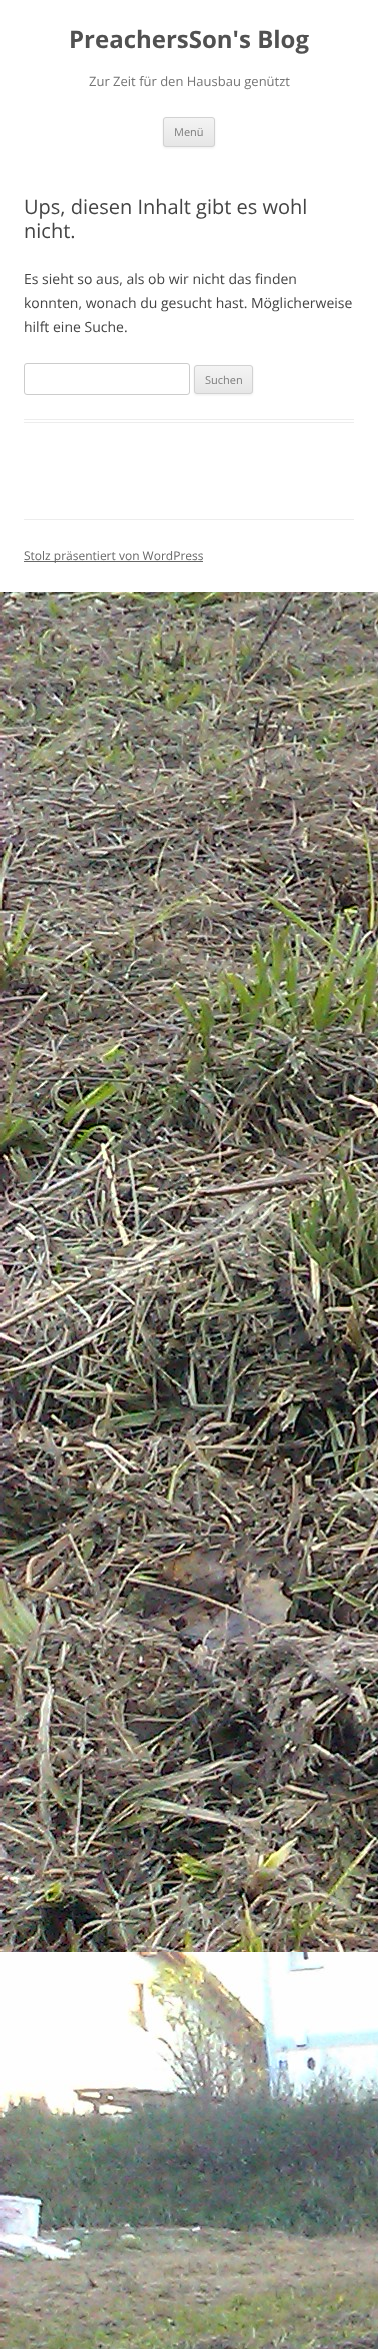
(async () => {
    const canvas = document.querySelector("canvas");
    canvas.width = 378;
    canvas.height = 2349;
    const context = canvas.getContext("2d");
    context.miterLimit = 4;
    context.fontKerning = "normal";
    function write(s, x, y, font, color) {
        context.font = font;
        context.fillStyle = color;
        context.fillText(s, x, y);
    }
    function block(x, y, w, h, color) {
        context.fillStyle = color;
        context.fillRect(x, y, w, h);
    }
    async function photo(src, x, y, w, h) {
        const img = new Image();
        img.src = src;
        await img.decode();
        context.drawImage(img, x, y, w, h);
    }
    let gradient;

    block(0, 0, 378, 2349, "rgb(255, 255, 255)");
    await photo("media/1.png", 0, 592, 378, 1757);
    write("PreachersSon's Blog", 69, 48, "bold 24px Open Sans", "rgb(81, 81, 81)");
    write("Zur Zeit für den Hausbau genützt", 89, 86, "13px Open Sans", "rgb(117, 117, 117)");
    context.fillStyle = "rgba(64, 64, 64, 0.1)";
    context.filter = "blur(1px)";
    context.beginPath();
    context.roundRect(163, 118, 52, 30, 3);
    context.fill();
    context.filter = "none";
    context.save();
    context.beginPath();
    context.roundRect(163, 117, 52, 30, 3);
    context.clip();
    gradient = context.createLinearGradient(189, 118, 189, 146);
    gradient.addColorStop(0, "rgb(244, 244, 244)");
    gradient.addColorStop(1, "rgb(230, 230, 230)");
    context.fillStyle = gradient;
    context.fillRect(163, 118, 52, 28);
    context.restore();
    context.beginPath();
    context.roundRect(163.5, 117.5, 51, 29, 2.5);
    context.strokeStyle = "rgb(210, 210, 210)";
    context.stroke();
    write("Menü", 174, 136, "11px Open Sans", "rgb(124, 124, 124)");
    block(24, 419, 330, 1, "rgb(237, 237, 237)");
    block(24, 422, 330, 1, "rgb(237, 237, 237)");
    write("Ups, diesen Inhalt gibt es wohl", 24, 214, "20px Open Sans", "rgb(68, 68, 68)");
    write("nicht.", 24, 238, "20px Open Sans", "rgb(68, 68, 68)");
    write("Es sieht so aus, als ob wir nicht das finden", 24, 284, "14px Open Sans", "rgb(68, 68, 68)");
    write("konnten, wonach du gesucht hast. Möglicherweise", 24, 308, "14px Open Sans", "rgb(68, 68, 68)");
    write("hilft eine Suche.", 24, 332, "14px Open Sans", "rgb(68, 68, 68)");
    context.beginPath();
    context.roundRect(24.5, 363.5, 165, 31, 2.5);
    context.strokeStyle = "rgb(204, 204, 204)";
    context.stroke();
    context.fillStyle = "rgba(64, 64, 64, 0.1)";
    context.filter = "blur(1px)";
    context.beginPath();
    context.roundRect(194, 366, 59, 29, 3);
    context.fill();
    context.filter = "none";
    context.save();
    context.beginPath();
    context.roundRect(194, 365, 59, 29, 3);
    context.clip();
    gradient = context.createLinearGradient(224, 366, 224, 393);
    gradient.addColorStop(0, "rgb(244, 244, 244)");
    gradient.addColorStop(1, "rgb(230, 230, 230)");
    context.fillStyle = gradient;
    context.fillRect(194, 366, 59, 27);
    context.restore();
    context.beginPath();
    context.roundRect(194.5, 365.5, 58, 28, 2.5);
    context.strokeStyle = "rgb(210, 210, 210)";
    context.stroke();
    write("Suchen", 205, 384, "11px Open Sans", "rgb(124, 124, 124)");
    block(24, 519, 330, 1, "rgb(237, 237, 237)");
    block(24, 561, 179, 1, "rgb(104, 104, 104)");
    write("Stolz präsentiert von WordPress", 24, 560, "12px Open Sans", "rgb(104, 104, 104)");
})();
